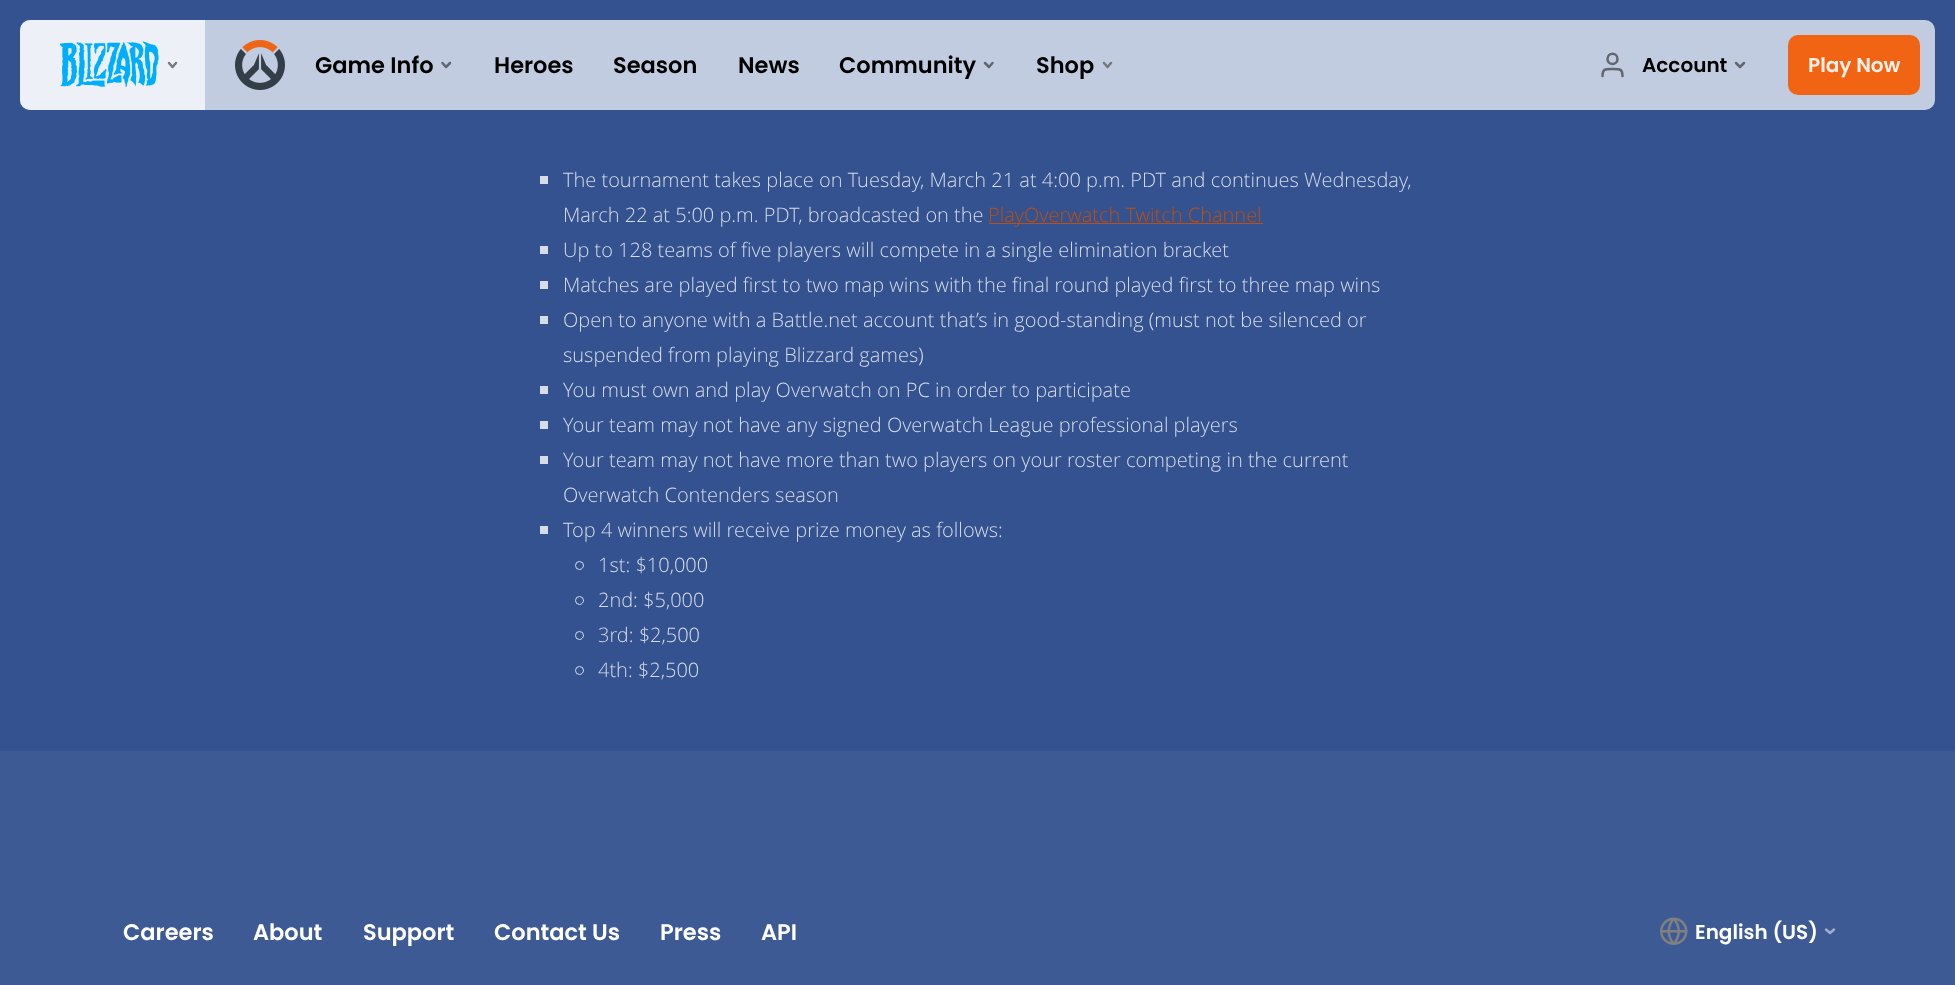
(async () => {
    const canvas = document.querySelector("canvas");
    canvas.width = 1955;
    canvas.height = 985;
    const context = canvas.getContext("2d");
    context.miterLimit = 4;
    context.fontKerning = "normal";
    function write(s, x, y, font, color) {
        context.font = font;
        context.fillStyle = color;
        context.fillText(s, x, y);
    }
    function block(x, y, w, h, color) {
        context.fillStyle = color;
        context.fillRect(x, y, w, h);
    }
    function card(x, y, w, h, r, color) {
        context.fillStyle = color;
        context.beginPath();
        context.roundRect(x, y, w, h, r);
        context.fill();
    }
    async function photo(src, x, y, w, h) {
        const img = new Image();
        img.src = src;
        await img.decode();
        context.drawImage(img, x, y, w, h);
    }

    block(0, 0, 1955, 985, "rgb(51, 82, 143)");
    card(20, 20, 1915, 90, 10, "rgba(229, 235, 244, 0.8)");
    context.fillStyle = "rgba(255, 255, 255, 0.7)";
    context.beginPath();
    context.roundRect(20, 20, 185, 90, [10, 0, 0, 10]);
    context.fill();
    await photo("media/1.png", 60, 41, 99, 46);
    context.beginPath();
    context.moveTo(169, 63);
    context.lineTo(172.5, 67);
    context.lineTo(176, 63);
    context.strokeStyle = "rgb(118, 120, 123)";
    context.lineWidth = 2.5;
    context.lineCap = "round";
    context.lineJoin = "round";
    context.stroke();
    await photo("media/2.png", 235, 40, 50, 50);
    write("Game Info", 315, 73, "600 22.5px Poppins", "rgb(0, 0, 0)");
    context.beginPath();
    context.moveTo(442.5, 63);
    context.lineTo(446, 67);
    context.lineTo(450, 63);
    context.strokeStyle = "rgb(97, 102, 112)";
    context.stroke();
    write("Heroes", 494, 73, "600 22.5px Poppins", "rgb(0, 0, 0)");
    write("Season", 613, 73, "600 22.5px Poppins", "rgb(0, 0, 0)");
    write("News", 738, 73, "600 22.5px Poppins", "rgb(0, 0, 0)");
    write("Community", 839, 73, "600 22.5px Poppins", "rgb(0, 0, 0)");
    context.beginPath();
    context.moveTo(985, 63);
    context.lineTo(989, 67);
    context.lineTo(992.5, 63);
    context.strokeStyle = "rgba(0, 0, 0, 0.5)";
    context.stroke();
    write("Shop", 1036, 73, "600 22.5px Poppins", "rgb(0, 0, 0)");
    context.beginPath();
    context.moveTo(1104, 63);
    context.lineTo(1107.5, 67);
    context.lineTo(1111, 63);
    context.strokeStyle = "rgb(117, 120, 123)";
    context.stroke();
    context.beginPath();
    context.moveTo(1622.5, 76);
    context.bezierCurveTo(1622.5, 68.5, 1619.5, 69, 1612.5, 69);
    context.bezierCurveTo(1605.5, 69, 1602.5, 68.5, 1602.5, 76);
    context.moveTo(1617.5, 59);
    context.bezierCurveTo(1617.5, 65.5, 1607.5, 65.5, 1607.5, 59);
    context.bezierCurveTo(1607.5, 52, 1617.5, 52, 1617.5, 59);
    context.strokeStyle = "rgb(97, 102, 112)";
    context.stroke();
    write("Account", 1642, 72, "600 20px Poppins", "rgb(0, 0, 0)");
    context.beginPath();
    context.moveTo(1736, 63);
    context.lineTo(1740, 67);
    context.lineTo(1744, 63);
    context.stroke();
    card(1788, 35, 132, 60, 10, "rgb(240, 100, 20)");
    write("Play Now", 1808, 72, "600 20px Poppins", "rgb(254, 240, 232)");
    block(540, 176, 8, 8, "rgb(214, 220, 233)");
    write("The tournament takes place on Tuesday, March 21 at 4:00 p.m. PDT and continues Wednesday,", 563, 187, "300 20px Open Sans", "rgb(214, 220, 233)");
    write("March 22 at 5:00 p.m. PDT, broadcasted on the", 563, 222, "300 20px Open Sans", "rgb(214, 220, 233)");
    block(989, 223, 274, 1, "rgb(192, 78, 12)");
    write("PlayOverwatch Twitch Channel", 988, 222, "300 20px Open Sans", "rgb(192, 78, 12)");
    block(540, 246, 8, 8, "rgb(214, 220, 233)");
    write("Up to 128 teams of five players will compete in a single elimination bracket", 563, 257, "300 20px Open Sans", "rgb(214, 220, 233)");
    block(540, 281, 8, 8, "rgb(214, 220, 233)");
    write("Matches are played first to two map wins with the final round played first to three map wins", 563, 292, "300 20px Open Sans", "rgb(214, 220, 233)");
    block(540, 316, 8, 8, "rgb(214, 220, 233)");
    write("Open to anyone with a Battle.net account that’s in good-standing (must not be silenced or", 563, 327, "300 20px Open Sans", "rgb(214, 220, 233)");
    write("suspended from playing Blizzard games)", 563, 362, "300 20px Open Sans", "rgb(214, 220, 233)");
    block(540, 386, 8, 8, "rgb(214, 220, 233)");
    write("You must own and play Overwatch on PC in order to participate", 563, 397, "300 20px Open Sans", "rgb(214, 220, 233)");
    block(540, 421, 8, 8, "rgb(214, 220, 233)");
    write("Your team may not have any signed Overwatch League professional players", 563, 432, "300 20px Open Sans", "rgb(214, 220, 233)");
    block(540, 456, 8, 8, "rgb(214, 220, 233)");
    write("Your team may not have more than two players on your roster competing in the current", 563, 467, "300 20px Open Sans", "rgb(214, 220, 233)");
    write("Overwatch Contenders season", 563, 502, "300 20px Open Sans", "rgb(214, 220, 233)");
    block(540, 526, 8, 8, "rgb(214, 220, 233)");
    write("Top 4 winners will receive prize money as follows:", 563, 537, "300 20px Open Sans", "rgb(214, 220, 233)");
    context.beginPath();
    context.arc(579.5, 565.5, 4, 0, Math.PI * 2);
    context.strokeStyle = "rgb(214, 220, 233)";
    context.lineWidth = 1;
    context.stroke();
    write("1st: $10,000", 598, 572, "300 20px Open Sans", "rgb(214, 220, 233)");
    context.beginPath();
    context.arc(579.5, 600.5, 4, 0, Math.PI * 2);
    context.stroke();
    write("2nd: $5,000", 598, 607, "300 20px Open Sans", "rgb(214, 220, 233)");
    context.beginPath();
    context.arc(579.5, 635.5, 4, 0, Math.PI * 2);
    context.stroke();
    write("3rd: $2,500", 598, 642, "300 20px Open Sans", "rgb(214, 220, 233)");
    context.beginPath();
    context.arc(579.5, 670.5, 4, 0, Math.PI * 2);
    context.stroke();
    write("4th: $2,500", 598, 677, "300 20px Open Sans", "rgb(214, 220, 233)");
    block(0, 751, 1955, 234, "rgb(61, 90, 149)");
    write("Careers", 123, 940, "600 22.5px Poppins", "rgb(255, 255, 255)");
    write("About", 253, 940, "600 22.5px Poppins", "rgb(255, 255, 255)");
    write("Support", 363, 940, "600 22.5px Poppins", "rgb(255, 255, 255)");
    write("Contact Us", 494, 940, "600 22.5px Poppins", "rgb(255, 255, 255)");
    write("Press", 660, 940, "600 22.5px Poppins", "rgb(255, 255, 255)");
    write("API", 761, 940, "600 22.5px Poppins", "rgb(255, 255, 255)");
    await photo("media/3.png", 1660, 917, 28, 28);
    write("English (US)", 1695, 939, "600 20px Poppins", "rgb(255, 255, 255)");
    context.beginPath();
    context.moveTo(1826, 929.5);
    context.lineTo(1830, 933);
    context.lineTo(1834, 929.5);
    context.strokeStyle = "rgb(158, 173, 202)";
    context.lineWidth = 2.5;
    context.stroke();
})();
